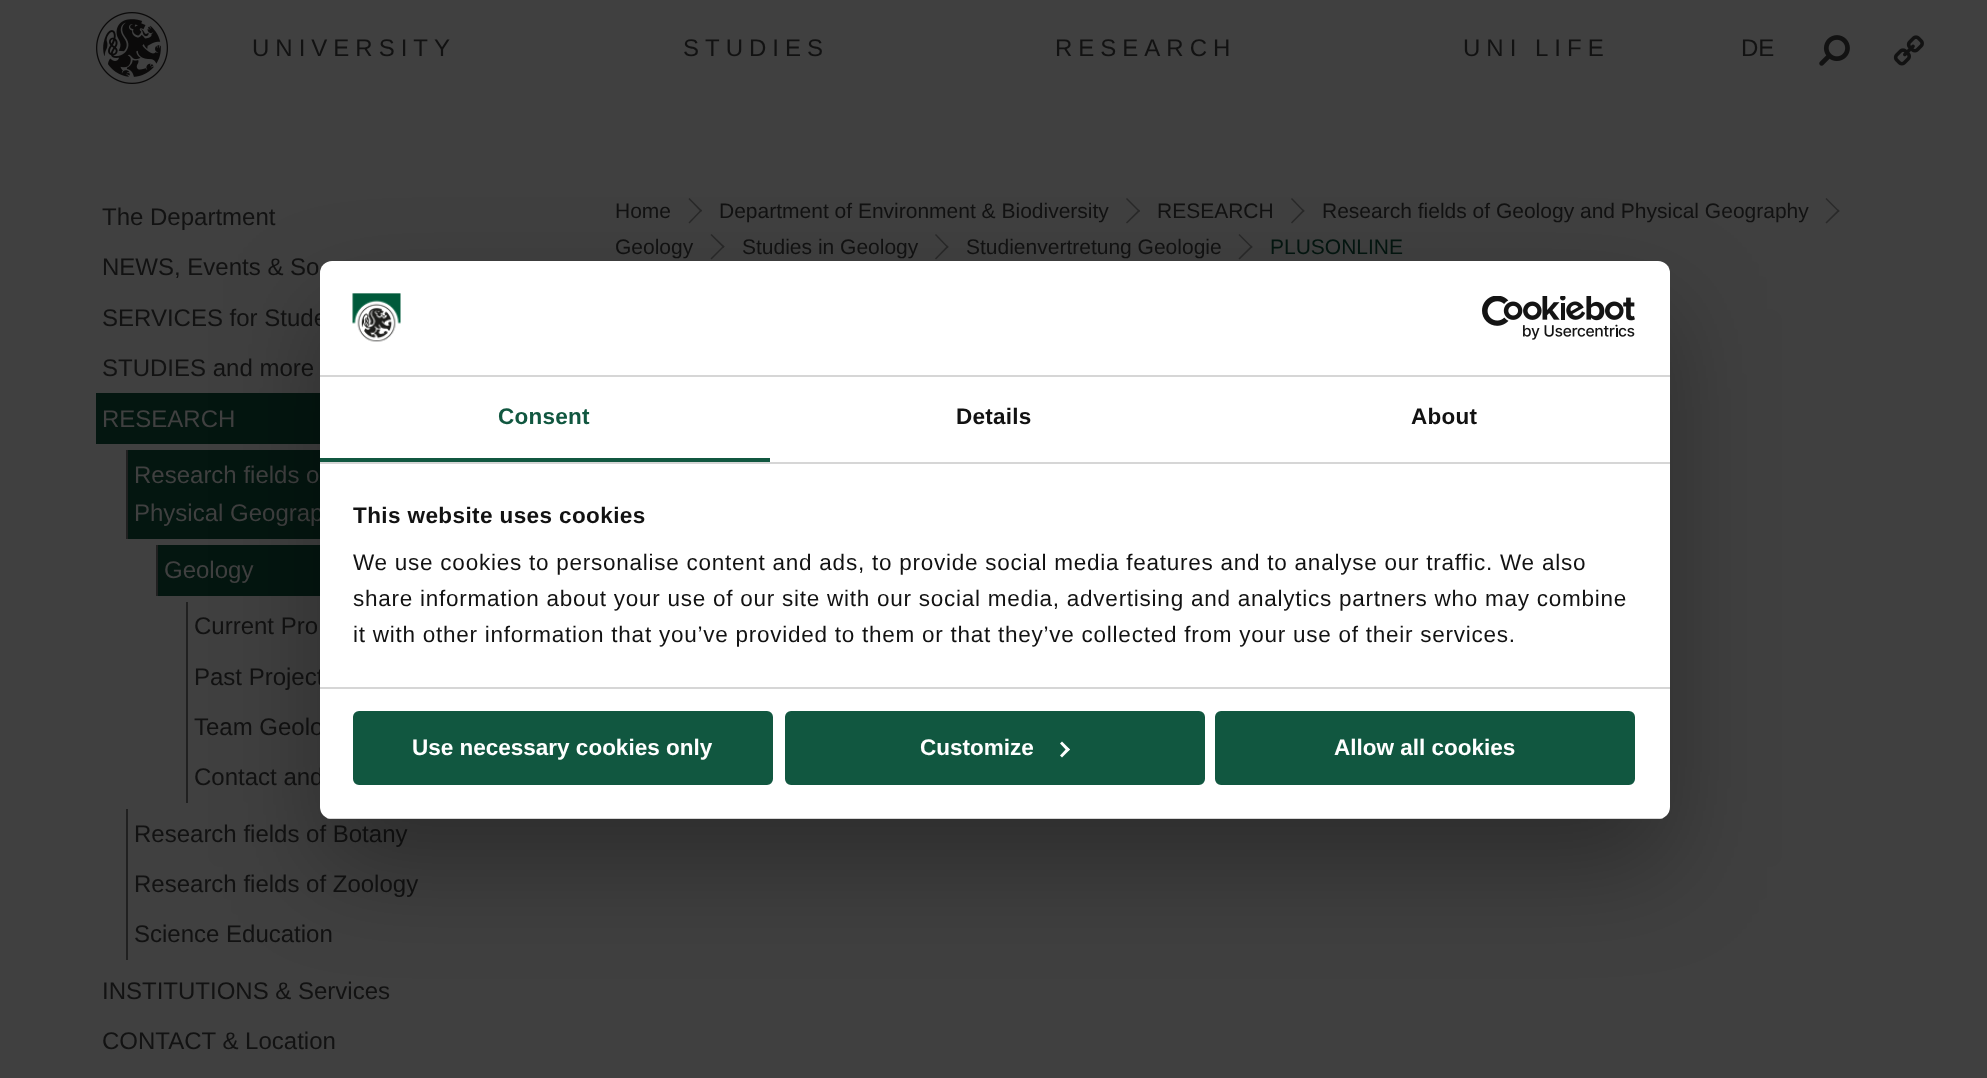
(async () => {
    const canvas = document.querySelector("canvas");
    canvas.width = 1987;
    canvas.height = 1078;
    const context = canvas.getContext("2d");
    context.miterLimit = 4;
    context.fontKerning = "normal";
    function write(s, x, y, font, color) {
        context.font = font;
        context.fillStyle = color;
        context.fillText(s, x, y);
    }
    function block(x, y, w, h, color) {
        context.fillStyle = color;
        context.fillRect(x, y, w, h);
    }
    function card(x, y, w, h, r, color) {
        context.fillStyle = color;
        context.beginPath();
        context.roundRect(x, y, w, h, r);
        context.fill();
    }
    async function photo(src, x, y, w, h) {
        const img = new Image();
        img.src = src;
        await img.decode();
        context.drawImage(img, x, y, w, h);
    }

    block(0, 0, 1987, 1078, "rgb(64, 64, 64)");
    await photo("media/1.png", 96, 12, 72, 72);
    context.letterSpacing = "6px";
    write("UNIVERSITY", 252, 56, "24px Liberation Sans", "rgb(18, 18, 18)");
    write("STUDIES", 683, 56, "24px Liberation Sans", "rgb(18, 18, 18)");
    write("RESEARCH", 1055, 56, "24px Liberation Sans", "rgb(18, 18, 18)");
    write("UNI LIFE", 1463, 56, "24px Liberation Sans", "rgb(18, 18, 18)");
    context.letterSpacing = "0px";
    write("DE", 1741, 56, "24px Liberation Sans", "rgb(18, 18, 18)");
    await photo("media/2.png", 1819, 35, 31, 31);
    await photo("media/3.png", 1893, 35, 31, 31);
    write("The Department", 102, 225, "24px Liberation Sans", "rgb(18, 18, 18)");
    write("NEWS, Events & So", 102, 275, "24px Liberation Sans", "rgb(18, 18, 18)");
    write("SERVICES for Stude", 102, 326, "24px Liberation Sans", "rgb(18, 18, 18)");
    write("STUDIES and more", 102, 376, "24px Liberation Sans", "rgb(18, 18, 18)");
    block(96, 393, 224, 51, "rgb(4, 22, 16)");
    write("RESEARCH", 102, 427, "24px Liberation Sans", "rgb(64, 64, 64)");
    block(128, 450, 192, 89, "rgb(4, 22, 16)");
    block(126, 450, 2, 89, "rgb(32, 32, 32)");
    write("Research fields o", 134, 483, "24px Liberation Sans", "rgb(64, 64, 64)");
    write("Physical Geograp", 134, 521, "24px Liberation Sans", "rgb(64, 64, 64)");
    block(158, 545, 162, 51, "rgb(4, 22, 16)");
    block(156, 545, 2, 51, "rgb(32, 32, 32)");
    write("Geology", 164, 578, "24px Liberation Sans", "rgb(64, 64, 64)");
    block(186, 602, 2, 201, "rgb(32, 32, 32)");
    write("Current Pro", 194, 634, "24px Liberation Sans", "rgb(18, 18, 18)");
    write("Past Project", 194, 685, "24px Liberation Sans", "rgb(18, 18, 18)");
    write("Team Geolo", 194, 735, "24px Liberation Sans", "rgb(18, 18, 18)");
    write("Contact and", 194, 785, "24px Liberation Sans", "rgb(18, 18, 18)");
    block(126, 809, 2, 151, "rgb(32, 32, 32)");
    write("Research fields of Botany", 134, 842, "24px Liberation Sans", "rgb(18, 18, 18)");
    write("Research fields of Zoology", 134, 892, "24px Liberation Sans", "rgb(18, 18, 18)");
    write("Science Education", 134, 942, "24px Liberation Sans", "rgb(18, 18, 18)");
    write("INSTITUTIONS & Services", 102, 999, "24px Liberation Sans", "rgb(18, 18, 18)");
    write("CONTACT & Location", 102, 1049, "24px Liberation Sans", "rgb(18, 18, 18)");
    write("Home", 615, 218, "21px Liberation Sans", "rgb(18, 18, 18)");
    context.fillStyle = "rgb(41, 41, 41)";
    context.beginPath();
    context.moveTo(689.5, 198);
    context.lineTo(702, 210.5);
    context.lineTo(701, 212);
    context.lineTo(688.5, 199);
    context.closePath();
    context.fill();
    context.beginPath();
    context.moveTo(701, 209.5);
    context.lineTo(702, 210.5);
    context.lineTo(689.5, 223.5);
    context.lineTo(688.5, 222.5);
    context.closePath();
    context.fill();
    write("Department of Environment & Biodiversity", 719, 218, "21px Liberation Sans", "rgb(18, 18, 18)");
    context.fillStyle = "rgb(41, 41, 41)";
    context.beginPath();
    context.moveTo(1127, 198);
    context.lineTo(1140, 211);
    context.lineTo(1139, 212);
    context.lineTo(1126, 199);
    context.closePath();
    context.fill();
    context.beginPath();
    context.moveTo(1139, 209.5);
    context.lineTo(1140, 211);
    context.lineTo(1127, 223.5);
    context.lineTo(1126, 222.5);
    context.closePath();
    context.fill();
    write("RESEARCH", 1157, 218, "21px Liberation Sans", "rgb(18, 18, 18)");
    context.fillStyle = "rgb(41, 41, 41)";
    context.beginPath();
    context.moveTo(1292, 198);
    context.lineTo(1304.5, 211);
    context.lineTo(1303.5, 212);
    context.lineTo(1291, 199);
    context.closePath();
    context.fill();
    context.beginPath();
    context.moveTo(1303.5, 209.5);
    context.lineTo(1304.5, 211);
    context.lineTo(1292, 223.5);
    context.lineTo(1291, 222.5);
    context.closePath();
    context.fill();
    write("Research fields of Geology and Physical Geography", 1322, 218, "21px Liberation Sans", "rgb(18, 18, 18)");
    context.fillStyle = "rgb(41, 41, 41)";
    context.beginPath();
    context.moveTo(1826.5, 198);
    context.lineTo(1839.5, 211);
    context.lineTo(1838.5, 212);
    context.lineTo(1825.5, 199);
    context.closePath();
    context.fill();
    context.beginPath();
    context.moveTo(1838.5, 209.5);
    context.lineTo(1839.5, 211);
    context.lineTo(1826.5, 223.5);
    context.lineTo(1825.5, 222.5);
    context.closePath();
    context.fill();
    write("Geology", 615, 254, "21px Liberation Sans", "rgb(18, 18, 18)");
    context.fillStyle = "rgb(41, 41, 41)";
    context.beginPath();
    context.moveTo(711.5, 234);
    context.lineTo(724.5, 246.5);
    context.lineTo(723.5, 248);
    context.lineTo(710.5, 235);
    context.closePath();
    context.fill();
    context.beginPath();
    context.moveTo(723.5, 245.5);
    context.lineTo(724.5, 246.5);
    context.lineTo(711.5, 259.5);
    context.lineTo(710.5, 258.5);
    context.closePath();
    context.fill();
    write("Studies in Geology", 742, 254, "21px Liberation Sans", "rgb(18, 18, 18)");
    context.fillStyle = "rgb(41, 41, 41)";
    context.beginPath();
    context.moveTo(936, 234);
    context.lineTo(948.5, 247);
    context.lineTo(947.5, 248);
    context.lineTo(935, 235);
    context.closePath();
    context.fill();
    context.beginPath();
    context.moveTo(947.5, 245.5);
    context.lineTo(948.5, 247);
    context.lineTo(936, 259.5);
    context.lineTo(935, 258.5);
    context.closePath();
    context.fill();
    write("Studienvertretung Geologie", 966, 254, "21px Liberation Sans", "rgb(18, 18, 18)");
    context.fillStyle = "rgb(41, 41, 41)";
    context.beginPath();
    context.moveTo(1239.5, 234);
    context.lineTo(1252.5, 247);
    context.lineTo(1251.5, 248);
    context.lineTo(1238.5, 235);
    context.closePath();
    context.fill();
    context.beginPath();
    context.moveTo(1251.5, 245.5);
    context.lineTo(1252.5, 247);
    context.lineTo(1239.5, 259.5);
    context.lineTo(1238.5, 258.5);
    context.closePath();
    context.fill();
    write("PLUSONLINE", 1270, 254, "21px Liberation Sans", "rgb(4, 22, 16)");
    context.fillStyle = "rgba(0, 0, 0, 0.3)";
    context.filter = "blur(51px)";
    context.beginPath();
    context.roundRect(320, 309, 1350, 558, 12);
    context.fill();
    context.filter = "none";
    card(320, 261, 1350, 558, 12, "rgb(255, 255, 255)");
    block(320, 375, 1350, 2, "rgb(214, 214, 214)");
    await photo("media/4.png", 352, 293, 49, 49);
    await photo("media/5.png", 1482, 296, 153, 44);
    block(320, 462, 1350, 2, "rgb(214, 214, 214)");
    block(320, 458, 450, 4, "rgb(17, 87, 64)");
    context.letterSpacing = "0.25px";
    write("Consent", 498, 424, "bold 22.5px Liberation Sans", "rgb(17, 87, 64)");
    write("Details", 956, 424, "bold 22.5px Liberation Sans", "rgb(18, 18, 18)");
    write("About", 1411, 424, "bold 22.5px Liberation Sans", "rgb(18, 18, 18)");
    block(320, 687, 1350, 2, "rgb(214, 214, 214)");
    context.letterSpacing = "0.4px";
    write("This website uses cookies", 353, 523, "bold 22.5px Liberation Sans", "rgb(18, 18, 18)");
    context.letterSpacing = "0.75px";
    write("We use cookies to personalise content and ads, to provide social media features and to analyse our traffic. We also", 353, 570, "22.5px Liberation Sans", "rgb(18, 18, 18)");
    write("share information about your use of our site with our social media, advertising and analytics partners who may combine", 353, 606, "22.5px Liberation Sans", "rgb(18, 18, 18)");
    write("it with other information that you’ve provided to them or that they’ve collected from your use of their services.", 353, 642, "22.5px Liberation Sans", "rgb(18, 18, 18)");
    context.save();
    context.beginPath();
    context.roundRect(320, 261, 1350, 558, 12);
    context.clip();
    block(320, 818, 1350, 1, "rgb(214, 214, 214)");
    context.restore();
    context.fillStyle = "rgb(17, 87, 64)";
    context.beginPath();
    context.roundRect(354.5, 712.5, 417, 71, 4.5);
    context.fill();
    context.strokeStyle = "rgb(17, 87, 64)";
    context.lineWidth = 3;
    context.stroke();
    context.letterSpacing = "0px";
    write("Use necessary cookies only", 412, 755, "bold 22.5px Liberation Sans", "rgb(255, 255, 255)");
    context.fillStyle = "rgb(17, 87, 64)";
    context.beginPath();
    context.roundRect(786.5, 712.5, 417, 71, 4.5);
    context.fill();
    context.stroke();
    write("Customize", 920, 755, "bold 22.5px Liberation Sans", "rgb(255, 255, 255)");
    context.beginPath();
    context.moveTo(1062, 741.5);
    context.lineTo(1070, 749.5);
    context.lineTo(1067.5, 751.5);
    context.lineTo(1060, 743.5);
    context.closePath();
    context.fill();
    context.beginPath();
    context.moveTo(1067.5, 747.5);
    context.lineTo(1070, 749.5);
    context.lineTo(1062, 757.5);
    context.lineTo(1060, 755.5);
    context.closePath();
    context.fill();
    context.fillStyle = "rgb(17, 87, 64)";
    context.beginPath();
    context.roundRect(1216.5, 712.5, 417, 71, 4.5);
    context.fill();
    context.stroke();
    write("Allow all cookies", 1334, 755, "bold 22.5px Liberation Sans", "rgb(255, 255, 255)");
})();
